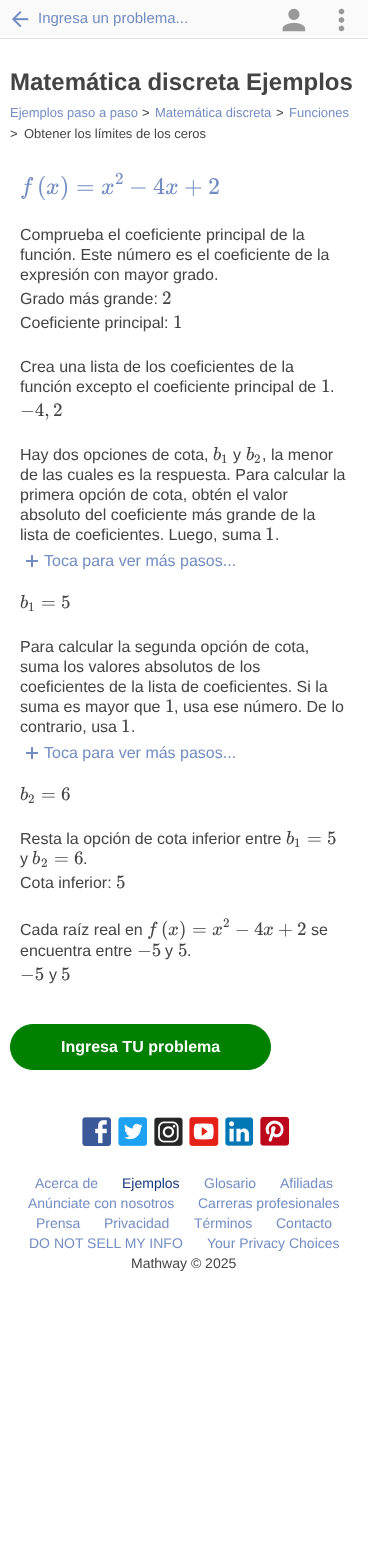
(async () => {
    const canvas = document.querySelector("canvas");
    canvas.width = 368;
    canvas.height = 1553;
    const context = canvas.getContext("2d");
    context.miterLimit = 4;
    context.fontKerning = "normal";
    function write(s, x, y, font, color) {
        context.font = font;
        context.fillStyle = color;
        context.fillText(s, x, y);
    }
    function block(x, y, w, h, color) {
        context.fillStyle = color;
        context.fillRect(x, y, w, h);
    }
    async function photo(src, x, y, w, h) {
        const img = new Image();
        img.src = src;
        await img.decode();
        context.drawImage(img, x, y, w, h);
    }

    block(0, 0, 368, 1553, "rgb(255, 255, 255)");
    block(0, 38, 368, 1, "rgb(225, 225, 225)");
    block(0, 0, 368, 36, "rgb(250, 250, 250)");
    await photo("media/1.png", 12, 11, 17, 17);
    write("Ingresa un problema...", 38, 23, "15px Liberation Sans", "rgb(115, 141, 195)");
    await photo("media/2.png", 282, 8, 24, 24);
    await photo("media/3.png", 338, 8, 7, 24);
    write("Matemática discreta Ejemplos", 10, 90, "bold 24px Liberation Sans", "rgb(68, 68, 68)");
    write("Ejemplos paso a paso", 10, 117, "13px Liberation Sans", "rgb(115, 141, 195)");
    write(">", 142, 117, "13px Liberation Sans", "rgb(68, 68, 68)");
    write("Matemática discreta", 155, 117, "13px Liberation Sans", "rgb(115, 141, 195)");
    write(">", 276, 117, "13px Liberation Sans", "rgb(68, 68, 68)");
    write("Funciones", 289, 117, "13px Liberation Sans", "rgb(115, 141, 195)");
    write(">", 10, 138, "13px Liberation Sans", "rgb(68, 68, 68)");
    write("Obtener los límites de los ceros", 24, 138, "13px Liberation Sans", "rgb(68, 68, 68)");
    write("f", 20, 194, "italic 24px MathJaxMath", "rgb(115, 141, 195)");
    write("(", 37, 194, "24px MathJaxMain", "rgb(115, 141, 195)");
    write("x", 46, 194, "italic 24px MathJaxMath", "rgb(115, 141, 195)");
    write(")", 60, 194, "24px MathJaxMain", "rgb(115, 141, 195)");
    write("=", 76, 194, "24px MathJaxMain", "rgb(115, 141, 195)");
    write("2", 115, 184, "17px MathJaxMain", "rgb(115, 141, 195)");
    write("x", 101, 194, "italic 24px MathJaxMath", "rgb(115, 141, 195)");
    write("−", 129, 194, "24px MathJaxMain", "rgb(115, 141, 195)");
    write("4", 153, 194, "24px MathJaxMain", "rgb(115, 141, 195)");
    write("x", 165, 194, "italic 24px MathJaxMath", "rgb(115, 141, 195)");
    write("+", 184, 194, "24px MathJaxMain", "rgb(115, 141, 195)");
    write("2", 208, 194, "24px MathJaxMain", "rgb(115, 141, 195)");
    write("Comprueba el coeficiente principal de la", 20, 240, "16px Liberation Sans", "rgb(68, 68, 68)");
    write("función. Este número es el coeficiente de la", 20, 260, "16px Liberation Sans", "rgb(68, 68, 68)");
    write("expresión con mayor grado.", 20, 280, "16px Liberation Sans", "rgb(68, 68, 68)");
    write("Grado más grande:", 20, 304, "16px Liberation Sans", "rgb(68, 68, 68)");
    write("2", 162, 304, "19px MathJaxMain", "rgb(68, 68, 68)");
    write("Coeficiente principal:", 20, 328, "16px Liberation Sans", "rgb(68, 68, 68)");
    write("1", 173, 328, "19px MathJaxMain", "rgb(68, 68, 68)");
    write("Crea una lista de los coeficientes de la", 20, 372, "16px Liberation Sans", "rgb(68, 68, 68)");
    write("función excepto el coeficiente principal de", 20, 392, "16px Liberation Sans", "rgb(68, 68, 68)");
    write("1", 321, 392, "19px MathJaxMain", "rgb(68, 68, 68)");
    write(".", 330, 392, "16px Liberation Sans", "rgb(68, 68, 68)");
    write("−4,", 20, 416, "19px MathJaxMain", "rgb(68, 68, 68)");
    write("2", 53, 416, "19px MathJaxMain", "rgb(68, 68, 68)");
    write("Hay dos opciones de cota,", 20, 460, "16px Liberation Sans", "rgb(68, 68, 68)");
    write("b", 213, 460, "italic 19px MathJaxMath", "rgb(68, 68, 68)");
    write("1", 221, 463, "13px MathJaxMain", "rgb(68, 68, 68)");
    write("y", 233, 460, "16px Liberation Sans", "rgb(68, 68, 68)");
    write("b", 246, 460, "italic 19px MathJaxMath", "rgb(68, 68, 68)");
    write("2", 254, 463, "13px MathJaxMain", "rgb(68, 68, 68)");
    write(", la menor", 262, 460, "16px Liberation Sans", "rgb(68, 68, 68)");
    write("de las cuales es la respuesta. Para calcular la", 20, 480, "16px Liberation Sans", "rgb(68, 68, 68)");
    write("primera opción de cota, obtén el valor", 20, 500, "16px Liberation Sans", "rgb(68, 68, 68)");
    write("absoluto del coeficiente más grande de la", 20, 520, "16px Liberation Sans", "rgb(68, 68, 68)");
    write("lista de coeficientes. Luego, suma", 20, 540, "16px Liberation Sans", "rgb(68, 68, 68)");
    write("1", 265, 540, "19px MathJaxMain", "rgb(68, 68, 68)");
    write(".", 275, 540, "16px Liberation Sans", "rgb(68, 68, 68)");
    block(31, 555, 2, 12, "rgb(115, 141, 195)");
    block(26, 560, 12, 2, "rgb(115, 141, 195)");
    write("Toca para ver más pasos...", 44, 566, "16px Liberation Sans", "rgb(115, 141, 195)");
    write("b", 20, 608, "italic 19px MathJaxMath", "rgb(68, 68, 68)");
    write("1", 28, 611, "13px MathJaxMain", "rgb(68, 68, 68)");
    write("=", 41, 608, "19px MathJaxMain", "rgb(68, 68, 68)");
    write("5", 61, 608, "19px MathJaxMain", "rgb(68, 68, 68)");
    write("Para calcular la segunda opción de cota,", 20, 652, "16px Liberation Sans", "rgb(68, 68, 68)");
    write("suma los valores absolutos de los", 20, 672, "16px Liberation Sans", "rgb(68, 68, 68)");
    write("coeficientes de la lista de coeficientes. Si la", 20, 692, "16px Liberation Sans", "rgb(68, 68, 68)");
    write("suma es mayor que", 20, 712, "16px Liberation Sans", "rgb(68, 68, 68)");
    write("1", 165, 712, "19px MathJaxMain", "rgb(68, 68, 68)");
    write(", usa ese número. De lo", 174, 712, "16px Liberation Sans", "rgb(68, 68, 68)");
    write("contrario, usa", 20, 732, "16px Liberation Sans", "rgb(68, 68, 68)");
    write("1", 121, 732, "19px MathJaxMain", "rgb(68, 68, 68)");
    write(".", 131, 732, "16px Liberation Sans", "rgb(68, 68, 68)");
    block(31, 747, 2, 12, "rgb(115, 141, 195)");
    block(26, 752, 12, 2, "rgb(115, 141, 195)");
    write("Toca para ver más pasos...", 44, 758, "16px Liberation Sans", "rgb(115, 141, 195)");
    write("b", 20, 800, "italic 19px MathJaxMath", "rgb(68, 68, 68)");
    write("2", 28, 803, "13px MathJaxMain", "rgb(68, 68, 68)");
    write("=", 41, 800, "19px MathJaxMain", "rgb(68, 68, 68)");
    write("6", 61, 800, "19px MathJaxMain", "rgb(68, 68, 68)");
    write("Resta la opción de cota inferior entre", 20, 844, "16px Liberation Sans", "rgb(68, 68, 68)");
    write("b", 286, 844, "italic 19px MathJaxMath", "rgb(68, 68, 68)");
    write("1", 294, 847, "13px MathJaxMain", "rgb(68, 68, 68)");
    write("=", 307, 844, "19px MathJaxMain", "rgb(68, 68, 68)");
    write("5", 327, 844, "19px MathJaxMain", "rgb(68, 68, 68)");
    write("y", 20, 864, "16px Liberation Sans", "rgb(68, 68, 68)");
    write("b", 32, 864, "italic 19px MathJaxMath", "rgb(68, 68, 68)");
    write("2", 41, 867, "13px MathJaxMain", "rgb(68, 68, 68)");
    write("=", 54, 864, "19px MathJaxMain", "rgb(68, 68, 68)");
    write("6", 74, 864, "19px MathJaxMain", "rgb(68, 68, 68)");
    write(".", 83, 864, "16px Liberation Sans", "rgb(68, 68, 68)");
    write("Cota inferior:", 20, 888, "16px Liberation Sans", "rgb(68, 68, 68)");
    write("5", 116, 888, "19px MathJaxMain", "rgb(68, 68, 68)");
    write("Cada raíz real en", 20, 935, "16px Liberation Sans", "rgb(68, 68, 68)");
    write("f", 147, 935, "italic 19px MathJaxMath", "rgb(68, 68, 68)");
    write("(", 161, 935, "19px MathJaxMain", "rgb(68, 68, 68)");
    write("x", 168, 935, "italic 19px MathJaxMath", "rgb(68, 68, 68)");
    write(")", 179, 935, "19px MathJaxMain", "rgb(68, 68, 68)");
    write("=", 192, 935, "19px MathJaxMain", "rgb(68, 68, 68)");
    write("2", 223, 927, "13px MathJaxMain", "rgb(68, 68, 68)");
    write("x", 212, 935, "italic 19px MathJaxMath", "rgb(68, 68, 68)");
    write("−", 235, 935, "19px MathJaxMain", "rgb(68, 68, 68)");
    write("4", 254, 935, "19px MathJaxMain", "rgb(68, 68, 68)");
    write("x", 263, 935, "italic 19px MathJaxMath", "rgb(68, 68, 68)");
    write("+", 278, 935, "19px MathJaxMain", "rgb(68, 68, 68)");
    write("2", 297, 935, "19px MathJaxMain", "rgb(68, 68, 68)");
    write("se", 311, 935, "16px Liberation Sans", "rgb(68, 68, 68)");
    write("encuentra entre", 20, 956, "16px Liberation Sans", "rgb(68, 68, 68)");
    write("−5", 137, 956, "19px MathJaxMain", "rgb(68, 68, 68)");
    write("y", 165, 956, "16px Liberation Sans", "rgb(68, 68, 68)");
    write("5", 178, 956, "19px MathJaxMain", "rgb(68, 68, 68)");
    write(".", 187, 956, "16px Liberation Sans", "rgb(68, 68, 68)");
    write("−5", 20, 980, "19px MathJaxMain", "rgb(68, 68, 68)");
    write("y", 49, 980, "16px Liberation Sans", "rgb(68, 68, 68)");
    write("5", 61, 980, "19px MathJaxMain", "rgb(68, 68, 68)");
    context.fillStyle = "rgb(0, 128, 0)";
    context.beginPath();
    context.roundRect(10.5, 1024.5, 260, 45, 22.5);
    context.fill();
    context.strokeStyle = "rgb(0, 128, 0)";
    context.stroke();
    write("Ingresa TU problema", 61, 1052, "bold 16px Liberation Sans", "rgb(255, 255, 255)");
    await photo("media/4.png", 82, 1117, 30, 29);
    await photo("media/5.png", 118, 1117, 30, 29);
    await photo("media/6.png", 154, 1117, 29, 29);
    await photo("media/7.png", 189, 1117, 30, 29);
    await photo("media/8.png", 225, 1117, 29, 29);
    await photo("media/9.png", 260, 1116, 30, 30);
    write("Acerca de", 35, 1188, "14px Liberation Sans", "rgb(115, 141, 195)");
    write("Ejemplos", 122, 1188, "14px Liberation Sans", "rgb(22, 56, 124)");
    write("Glosario", 204, 1188, "14px Liberation Sans", "rgb(115, 141, 195)");
    write("Afiliadas", 280, 1188, "14px Liberation Sans", "rgb(115, 141, 195)");
    write("Anúnciate con nosotros", 28, 1208, "14px Liberation Sans", "rgb(115, 141, 195)");
    write("Carreras profesionales", 198, 1208, "14px Liberation Sans", "rgb(115, 141, 195)");
    write("Prensa", 36, 1228, "14px Liberation Sans", "rgb(115, 141, 195)");
    write("Privacidad", 104, 1228, "14px Liberation Sans", "rgb(115, 141, 195)");
    write("Términos", 194, 1228, "14px Liberation Sans", "rgb(115, 141, 195)");
    write("Contacto", 276, 1228, "14px Liberation Sans", "rgb(115, 141, 195)");
    write("DO NOT SELL MY INFO", 29, 1248, "14px Liberation Sans", "rgb(115, 141, 195)");
    write("Your Privacy Choices", 207, 1248, "14px Liberation Sans", "rgb(115, 141, 195)");
    write("Mathway © 2025", 131, 1268, "14px Liberation Sans", "rgb(68, 68, 68)");
})();
